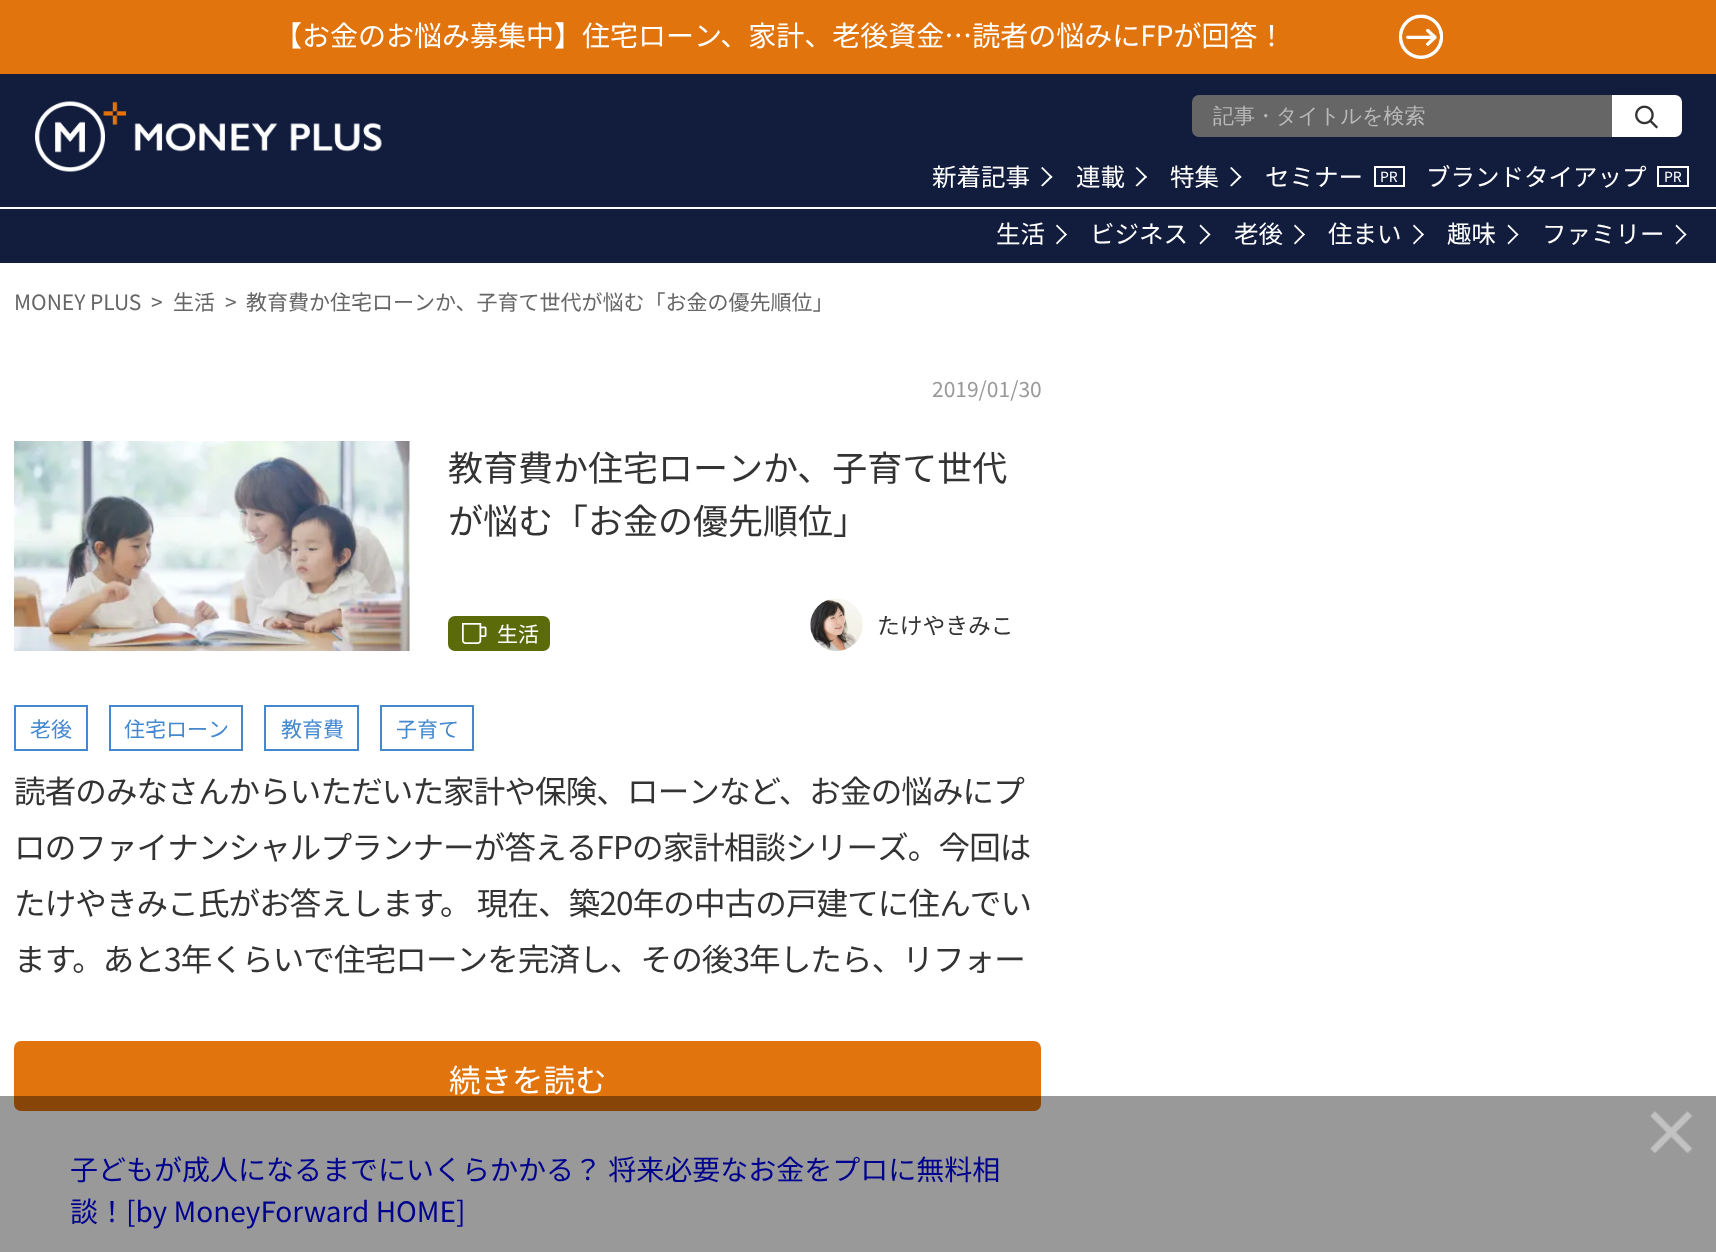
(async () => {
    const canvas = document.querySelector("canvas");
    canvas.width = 1716;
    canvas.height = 1252;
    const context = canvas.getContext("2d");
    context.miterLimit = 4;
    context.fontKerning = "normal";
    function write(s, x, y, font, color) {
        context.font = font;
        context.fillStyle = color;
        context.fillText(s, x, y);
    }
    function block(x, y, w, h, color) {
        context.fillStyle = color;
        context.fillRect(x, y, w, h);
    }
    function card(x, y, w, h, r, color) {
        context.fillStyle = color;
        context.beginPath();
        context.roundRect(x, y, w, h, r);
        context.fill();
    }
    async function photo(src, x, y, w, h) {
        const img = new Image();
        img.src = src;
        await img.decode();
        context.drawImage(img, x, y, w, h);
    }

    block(0, 0, 1716, 1252, "rgb(255, 255, 255)");
    block(0, 0, 1716, 74, "rgb(226, 116, 14)");
    write("【お金のお悩み募集中】住宅ローン、家計、老後資金…読者の悩みにFPが回答！", 274, 46, "28px Noto Sans JP", "rgb(255, 255, 255)");
    await photo("media/1.png", 1399, 14, 44, 45);
    block(0, 74, 1716, 189, "rgb(18, 29, 62)");
    await photo("media/2.png", 35, 101, 347, 71);
    context.fillStyle = "rgb(102, 102, 102)";
    context.beginPath();
    context.roundRect(1192, 95, 420, 42, [7, 0, 0, 7]);
    context.fill();
    write("記事・タイトルを検索", 1213, 123, "500 21px WenQuanYi Zen Hei", "rgb(185, 185, 185)");
    context.fillStyle = "rgb(255, 255, 255)";
    context.beginPath();
    context.roundRect(1612, 95, 70, 42, [0, 7, 7, 0]);
    context.fill();
    await photo("media/3.png", 1635, 105, 23, 24);
    write("新着記事", 932, 186, "24.5px Noto Sans JP", "rgb(255, 255, 255)");
    context.beginPath();
    context.moveTo(1042.5, 167);
    context.lineTo(1052.5, 177);
    context.lineTo(1051, 178);
    context.lineTo(1041, 168);
    context.closePath();
    context.fill();
    context.beginPath();
    context.moveTo(1051, 175.5);
    context.lineTo(1052.5, 177);
    context.lineTo(1042.5, 186.5);
    context.lineTo(1041, 185.5);
    context.closePath();
    context.fill();
    write("連載", 1076, 186, "24.5px Noto Sans JP", "rgb(255, 255, 255)");
    context.beginPath();
    context.moveTo(1137, 167);
    context.lineTo(1147, 177);
    context.lineTo(1145.5, 178);
    context.lineTo(1135.5, 168);
    context.closePath();
    context.fill();
    context.beginPath();
    context.moveTo(1145.5, 175.5);
    context.lineTo(1147, 177);
    context.lineTo(1137, 186.5);
    context.lineTo(1135.5, 185.5);
    context.closePath();
    context.fill();
    write("特集", 1170, 186, "24.5px Noto Sans JP", "rgb(255, 255, 255)");
    context.beginPath();
    context.moveTo(1231.5, 167);
    context.lineTo(1241.5, 177);
    context.lineTo(1240, 178);
    context.lineTo(1230, 168);
    context.closePath();
    context.fill();
    context.beginPath();
    context.moveTo(1240, 175.5);
    context.lineTo(1241.5, 177);
    context.lineTo(1231.5, 186.5);
    context.lineTo(1230, 185.5);
    context.closePath();
    context.fill();
    write("セミナー", 1265, 186, "24.5px Noto Sans JP", "rgb(255, 255, 255)");
    context.strokeStyle = "rgb(255, 255, 255)";
    context.lineWidth = 2;
    context.strokeRect(1375, 167, 29, 19);
    write("PR", 1380, 182, "14px Noto Sans JP", "rgb(255, 255, 255)");
    write("ブランドタイアップ", 1426, 186, "24.5px Noto Sans JP", "rgb(255, 255, 255)");
    context.strokeRect(1658, 167, 30, 19);
    write("PR", 1664, 182, "14px Noto Sans JP", "rgb(255, 255, 255)");
    block(0, 207, 1716, 2, "rgb(255, 255, 255)");
    write("生活", 996, 243, "24.5px Noto Sans JP", "rgb(255, 255, 255)");
    context.beginPath();
    context.moveTo(1057, 224.5);
    context.lineTo(1067, 234.5);
    context.lineTo(1065.5, 235.5);
    context.lineTo(1056, 226);
    context.closePath();
    context.fill();
    context.beginPath();
    context.moveTo(1065.5, 233.5);
    context.lineTo(1067, 234.5);
    context.lineTo(1057, 244.5);
    context.lineTo(1056, 243);
    context.closePath();
    context.fill();
    write("ビジネス", 1090, 243, "24.5px Noto Sans JP", "rgb(255, 255, 255)");
    context.beginPath();
    context.moveTo(1200.5, 224.5);
    context.lineTo(1210.5, 234.5);
    context.lineTo(1209, 235.5);
    context.lineTo(1199.5, 226);
    context.closePath();
    context.fill();
    context.beginPath();
    context.moveTo(1209, 233.5);
    context.lineTo(1210.5, 234.5);
    context.lineTo(1200.5, 244.5);
    context.lineTo(1199.5, 243);
    context.closePath();
    context.fill();
    write("老後", 1234, 243, "24.5px Noto Sans JP", "rgb(255, 255, 255)");
    context.beginPath();
    context.moveTo(1295, 224.5);
    context.lineTo(1305, 234.5);
    context.lineTo(1303.5, 235.5);
    context.lineTo(1294, 226);
    context.closePath();
    context.fill();
    context.beginPath();
    context.moveTo(1303.5, 233.5);
    context.lineTo(1305, 234.5);
    context.lineTo(1295, 244.5);
    context.lineTo(1294, 243);
    context.closePath();
    context.fill();
    write("住まい", 1328, 243, "24.5px Noto Sans JP", "rgb(255, 255, 255)");
    context.beginPath();
    context.moveTo(1414, 224.5);
    context.lineTo(1424, 234.5);
    context.lineTo(1422.5, 235.5);
    context.lineTo(1413, 226);
    context.closePath();
    context.fill();
    context.beginPath();
    context.moveTo(1422.5, 233.5);
    context.lineTo(1424, 234.5);
    context.lineTo(1414, 244.5);
    context.lineTo(1413, 243);
    context.closePath();
    context.fill();
    write("趣味", 1447, 243, "24.5px Noto Sans JP", "rgb(255, 255, 255)");
    context.beginPath();
    context.moveTo(1508.5, 224.5);
    context.lineTo(1518.5, 234.5);
    context.lineTo(1517, 235.5);
    context.lineTo(1507.5, 226);
    context.closePath();
    context.fill();
    context.beginPath();
    context.moveTo(1517, 233.5);
    context.lineTo(1518.5, 234.5);
    context.lineTo(1508.5, 244.5);
    context.lineTo(1507.5, 243);
    context.closePath();
    context.fill();
    write("ファミリー", 1542, 243, "24.5px Noto Sans JP", "rgb(255, 255, 255)");
    context.beginPath();
    context.moveTo(1676.5, 224.5);
    context.lineTo(1686.5, 234.5);
    context.lineTo(1685, 235.5);
    context.lineTo(1675.5, 226);
    context.closePath();
    context.fill();
    context.beginPath();
    context.moveTo(1685, 233.5);
    context.lineTo(1686.5, 234.5);
    context.lineTo(1676.5, 244.5);
    context.lineTo(1675.5, 243);
    context.closePath();
    context.fill();
    write("MONEY PLUS", 14, 310, "21px Noto Sans JP", "rgb(102, 102, 102)");
    write(">", 151, 310, "21px Noto Sans JP", "rgb(102, 102, 102)");
    write("生活", 173, 310, "21px Noto Sans JP", "rgb(102, 102, 102)");
    write(">", 225, 310, "21px Noto Sans JP", "rgb(102, 102, 102)");
    write("教育費か住宅ローンか、子育て世代が悩む「お金の優先順位」", 246, 310, "21px Noto Sans JP", "rgb(102, 102, 102)");
    write("2019/01/30", 932, 397, "21px Noto Sans JP", "rgb(153, 153, 153)");
    await photo("media/4.png", 14, 441, 396, 210);
    write("教育費か住宅ローンか、子育て世代", 448, 481, "35px Noto Sans JP", "rgb(51, 51, 51)");
    write("が悩む「お金の優先順位」", 448, 534, "35px Noto Sans JP", "rgb(51, 51, 51)");
    card(448, 616, 102, 35, 7, "rgb(91, 107, 10)");
    await photo("media/5.png", 462, 623, 25, 21);
    write("生活", 497, 642, "21px Noto Sans JP", "rgb(255, 255, 255)");
    await photo("media/6.png", 810, 598, 53, 53);
    write("たけやきみこ", 877, 634, "22.75px Noto Sans JP", "rgb(51, 51, 51)");
    context.strokeStyle = "rgb(68, 137, 208)";
    context.strokeRect(15, 706, 72, 44);
    write("老後", 30, 737, "21px Noto Sans JP", "rgb(68, 137, 208)");
    context.strokeRect(110, 706, 132, 44);
    write("住宅ローン", 124, 737, "21px Noto Sans JP", "rgb(68, 137, 208)");
    context.strokeRect(265, 706, 93, 44);
    write("教育費", 281, 737, "21px Noto Sans JP", "rgb(68, 137, 208)");
    context.strokeRect(381, 706, 92, 44);
    write("子育て", 396, 737, "21px Noto Sans JP", "rgb(68, 137, 208)");
    context.letterSpacing = "-0.85px";
    write("読者のみなさんからいただいた家計や保険、ローンなど、お金の悩みにプ", 14, 803, "31.5px Noto Sans JP", "rgb(51, 51, 51)");
    write("ロのファイナンシャルプランナーが答えるFPの家計相談シリーズ。今回は", 14, 859, "31.5px Noto Sans JP", "rgb(51, 51, 51)");
    write("たけやきみこ氏がお答えします。 現在、築20年の中古の戸建てに住んでい", 14, 915, "31.5px Noto Sans JP", "rgb(51, 51, 51)");
    write("ます。あと3年くらいで住宅ローンを完済し、その後3年したら、リフォー", 14, 971, "31.5px Noto Sans JP", "rgb(51, 51, 51)");
    context.fillStyle = "rgb(226, 116, 14)";
    context.beginPath();
    context.roundRect(15, 1042, 1025, 68, 6);
    context.fill();
    context.strokeStyle = "rgb(226, 116, 14)";
    context.stroke();
    context.letterSpacing = "0px";
    write("続きを読む", 449, 1092, "31.5px Noto Sans JP", "rgb(255, 255, 255)");
    write("子どもが成人になるまでにいくらかかる？ 将来必要なお金をプロに無料相", 70, 1180, "28px Noto Sans JP", "rgb(0, 0, 238)");
    write("談！[by MoneyForward HOME]", 70, 1222, "28px Noto Sans JP", "rgb(0, 0, 238)");
    block(0, 1096, 1716, 156, "rgba(0, 0, 0, 0.4)");
    await photo("media/7.png", 1650, 1111, 43, 43);
})();
